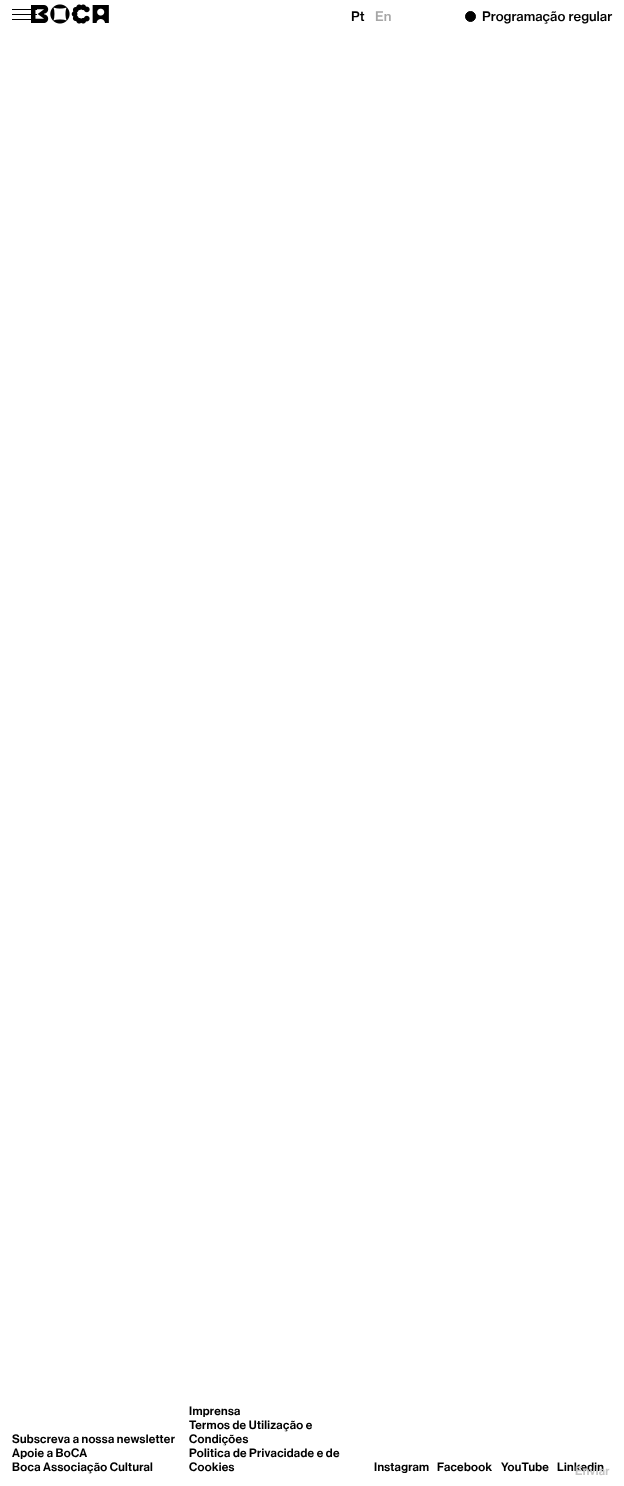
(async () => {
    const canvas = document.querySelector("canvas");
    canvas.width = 624;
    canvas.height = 1486;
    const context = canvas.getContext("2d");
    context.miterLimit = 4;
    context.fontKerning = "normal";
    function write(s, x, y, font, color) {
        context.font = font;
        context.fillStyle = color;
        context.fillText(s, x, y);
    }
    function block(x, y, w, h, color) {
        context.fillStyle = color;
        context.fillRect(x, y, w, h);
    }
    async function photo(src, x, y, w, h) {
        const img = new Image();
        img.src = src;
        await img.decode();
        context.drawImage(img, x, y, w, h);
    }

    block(0, 0, 624, 1486, "rgb(255, 255, 255)");
    await photo("media/1.png", 31, 4, 78, 20);
    block(12, 9, 25, 1, "rgb(0, 0, 0)");
    block(12, 14, 25, 1, "rgb(0, 0, 0)");
    block(12, 19, 25, 1, "rgb(0, 0, 0)");
    write("Pt", 351, 21, "500 13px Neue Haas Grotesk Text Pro", "rgb(0, 0, 0)");
    write("En", 375, 21, "500 13px Neue Haas Grotesk Text Pro", "rgb(166, 166, 166)");
    context.fillStyle = "rgb(0, 0, 0)";
    context.beginPath();
    context.arc(470.5, 16.5, 5, 0, Math.PI * 2);
    context.fill();
    context.strokeStyle = "rgb(0, 0, 0)";
    context.stroke();
    write("Programação regular", 482, 21, "500 13px Neue Haas Grotesk Text Pro", "rgb(0, 0, 0)");
    context.letterSpacing = "0.3px";
    write("Imprensa", 189, 1415, "500 12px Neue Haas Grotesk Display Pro", "rgb(0, 0, 0)");
    write("Termos de Utilização e", 189, 1429, "500 12px Neue Haas Grotesk Display Pro", "rgb(0, 0, 0)");
    write("Condições", 189, 1443, "500 12px Neue Haas Grotesk Display Pro", "rgb(0, 0, 0)");
    write("Politica de Privacidade e de", 189, 1457, "500 12px Neue Haas Grotesk Display Pro", "rgb(0, 0, 0)");
    write("Cookies", 189, 1471, "500 12px Neue Haas Grotesk Display Pro", "rgb(0, 0, 0)");
    write("Subscreva a nossa newsletter", 12, 1443, "500 12px Neue Haas Grotesk Display Pro", "rgb(0, 0, 0)");
    write("Apoie a BoCA", 12, 1457, "500 12px Neue Haas Grotesk Display Pro", "rgb(0, 0, 0)");
    write("Boca Associação Cultural", 12, 1471, "500 12px Neue Haas Grotesk Display Pro", "rgb(0, 0, 0)");
    write("Linkedin", 557, 1471, "500 12px Neue Haas Grotesk Display Pro", "rgb(0, 0, 0)");
    write("Enviar", 575, 1475, "500 12px Neue Haas Grotesk Display Pro", "rgb(198, 198, 198)");
    write("Instagram", 374, 1471, "500 12px Neue Haas Grotesk Display Pro", "rgb(0, 0, 0)");
    write("Facebook", 437, 1471, "500 12px Neue Haas Grotesk Display Pro", "rgb(0, 0, 0)");
    write("YouTube", 501, 1471, "500 12px Neue Haas Grotesk Display Pro", "rgb(0, 0, 0)");
})();
